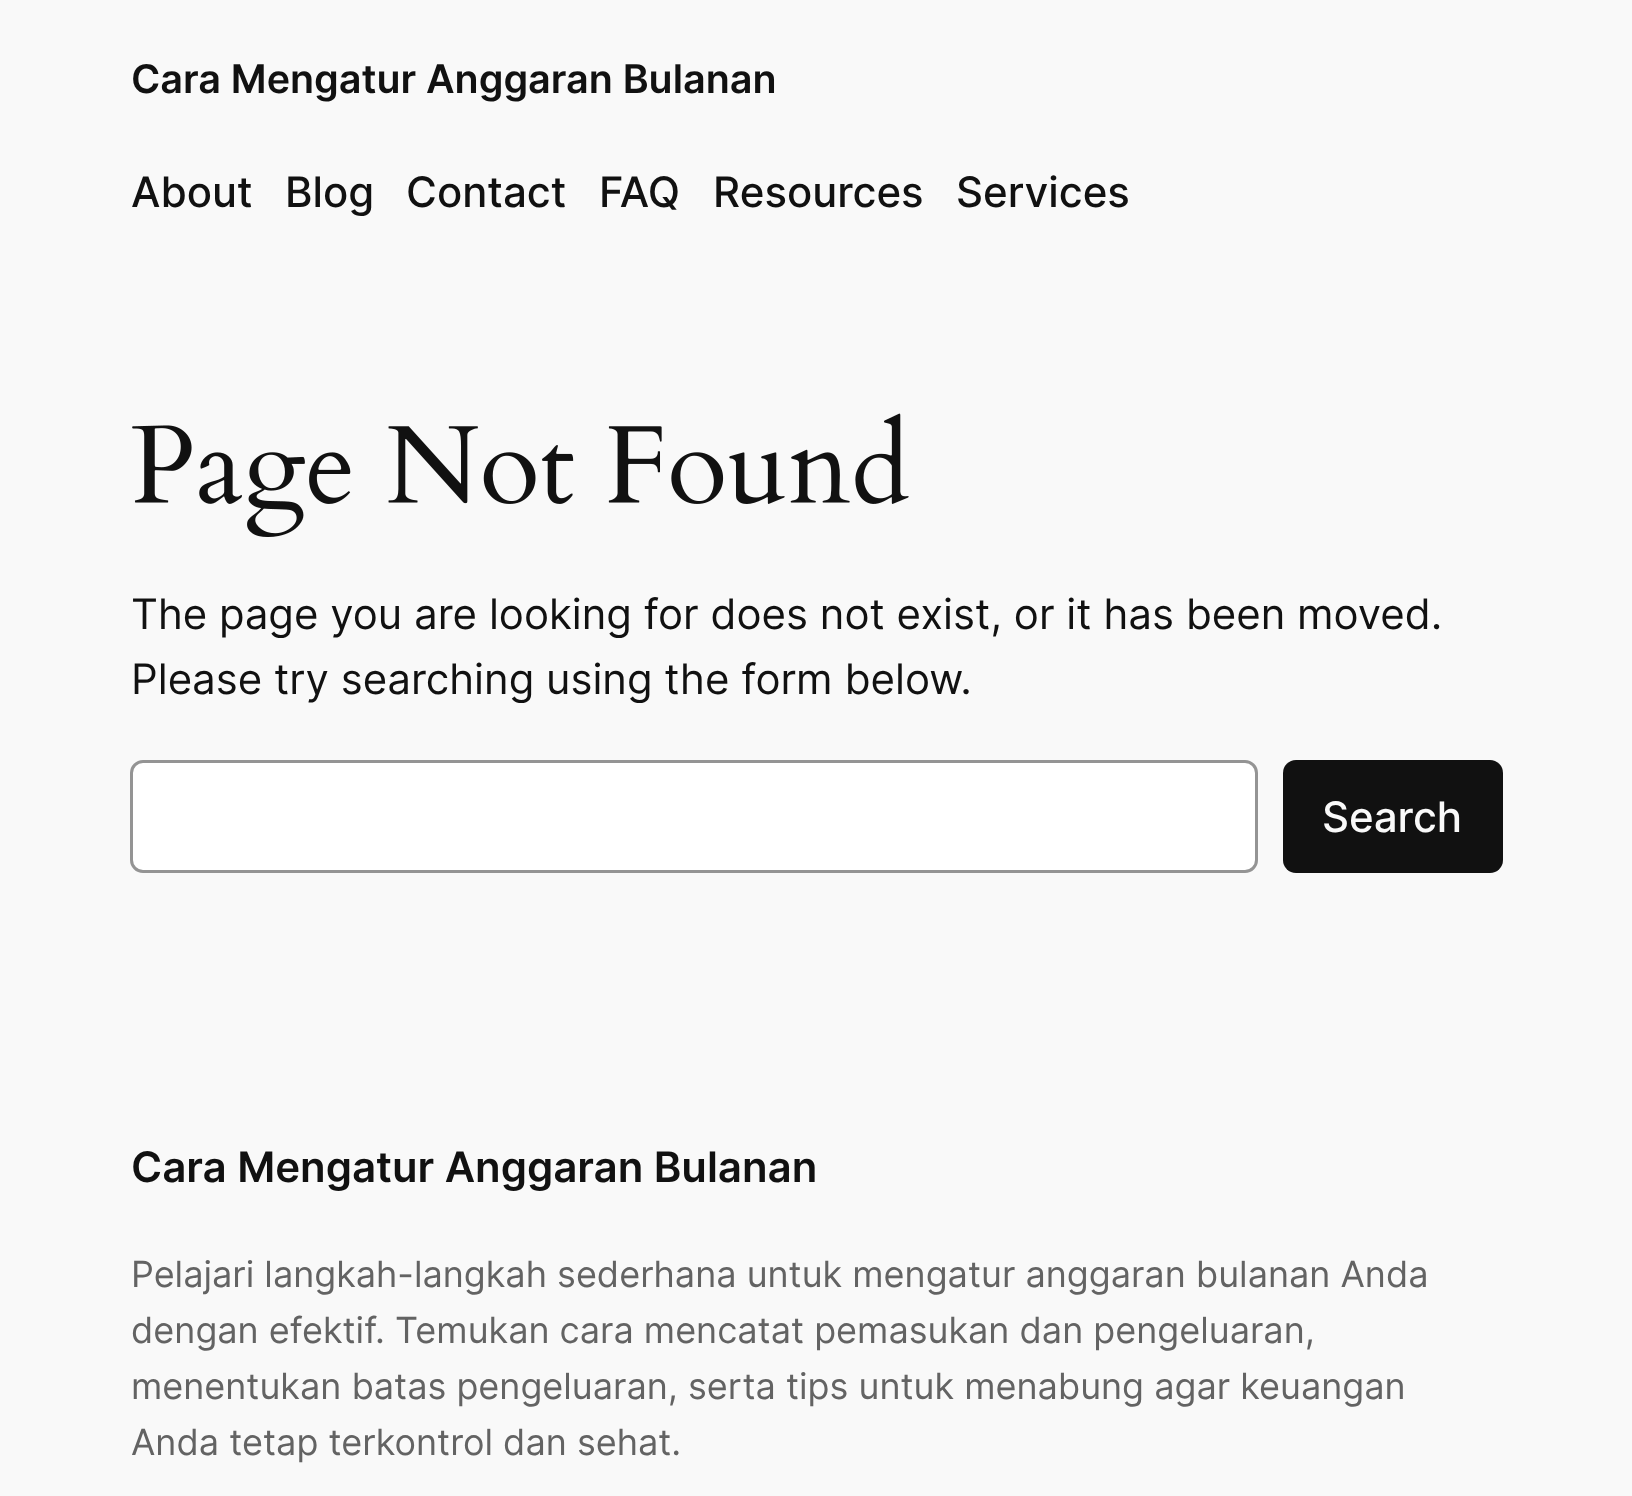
(async () => {
    const canvas = document.querySelector("canvas");
    canvas.width = 1632;
    canvas.height = 1496;
    const context = canvas.getContext("2d");
    context.miterLimit = 4;
    context.fontKerning = "normal";
    function write(s, x, y, font, color) {
        context.font = font;
        context.fillStyle = color;
        context.fillText(s, x, y);
    }
    function block(x, y, w, h, color) {
        context.fillStyle = color;
        context.fillRect(x, y, w, h);
    }
    function card(x, y, w, h, r, color) {
        context.fillStyle = color;
        context.beginPath();
        context.roundRect(x, y, w, h, r);
        context.fill();
    }
    async function photo(src, x, y, w, h) {
        const img = new Image();
        img.src = src;
        await img.decode();
        context.drawImage(img, x, y, w, h);
    }

    block(0, 0, 1632, 1496, "rgb(249, 249, 249)");
    write("Cara Mengatur Anggaran Bulanan", 131, 93, "600 39.5px Inter", "rgb(17, 17, 17)");
    write("About", 131, 207, "500 42px Inter", "rgb(17, 17, 17)");
    write("Blog", 285, 207, "500 42px Inter", "rgb(17, 17, 17)");
    write("Contact", 406, 207, "500 42px Inter", "rgb(17, 17, 17)");
    write("FAQ", 599, 207, "500 42px Inter", "rgb(17, 17, 17)");
    write("Resources", 713, 207, "500 42px Inter", "rgb(17, 17, 17)");
    write("Services", 956, 207, "500 42px Inter", "rgb(17, 17, 17)");
    await photo("media/1.png", 132, 413, 777, 124);
    write("The page you are looking for does not exist, or it has been moved.", 131, 629, "42px Inter", "rgb(17, 17, 17)");
    write("Please try searching using the form below.", 131, 694, "42px Inter", "rgb(17, 17, 17)");
    context.fillStyle = "rgb(255, 255, 255)";
    context.beginPath();
    context.roundRect(131.5, 761.5, 1125, 110, 11.5);
    context.fill();
    context.strokeStyle = "rgb(148, 148, 148)";
    context.lineWidth = 3;
    context.stroke();
    card(1283, 760, 220, 113, 13, "rgb(17, 17, 17)");
    write("Search", 1322, 832, "500 42px Inter", "rgb(249, 249, 249)");
    write("Cara Mengatur Anggaran Bulanan", 131, 1182, "600 42px Inter", "rgb(17, 17, 17)");
    write("Pelajari langkah-langkah sederhana untuk mengatur anggaran bulanan Anda", 131, 1287, "36px Inter", "rgb(99, 99, 99)");
    write("dengan efektif. Temukan cara mencatat pemasukan dan pengeluaran,", 131, 1343, "36px Inter", "rgb(99, 99, 99)");
    write("menentukan batas pengeluaran, serta tips untuk menabung agar keuangan", 131, 1399, "36px Inter", "rgb(99, 99, 99)");
    write("Anda tetap terkontrol dan sehat.", 131, 1455, "36px Inter", "rgb(99, 99, 99)");
})();
